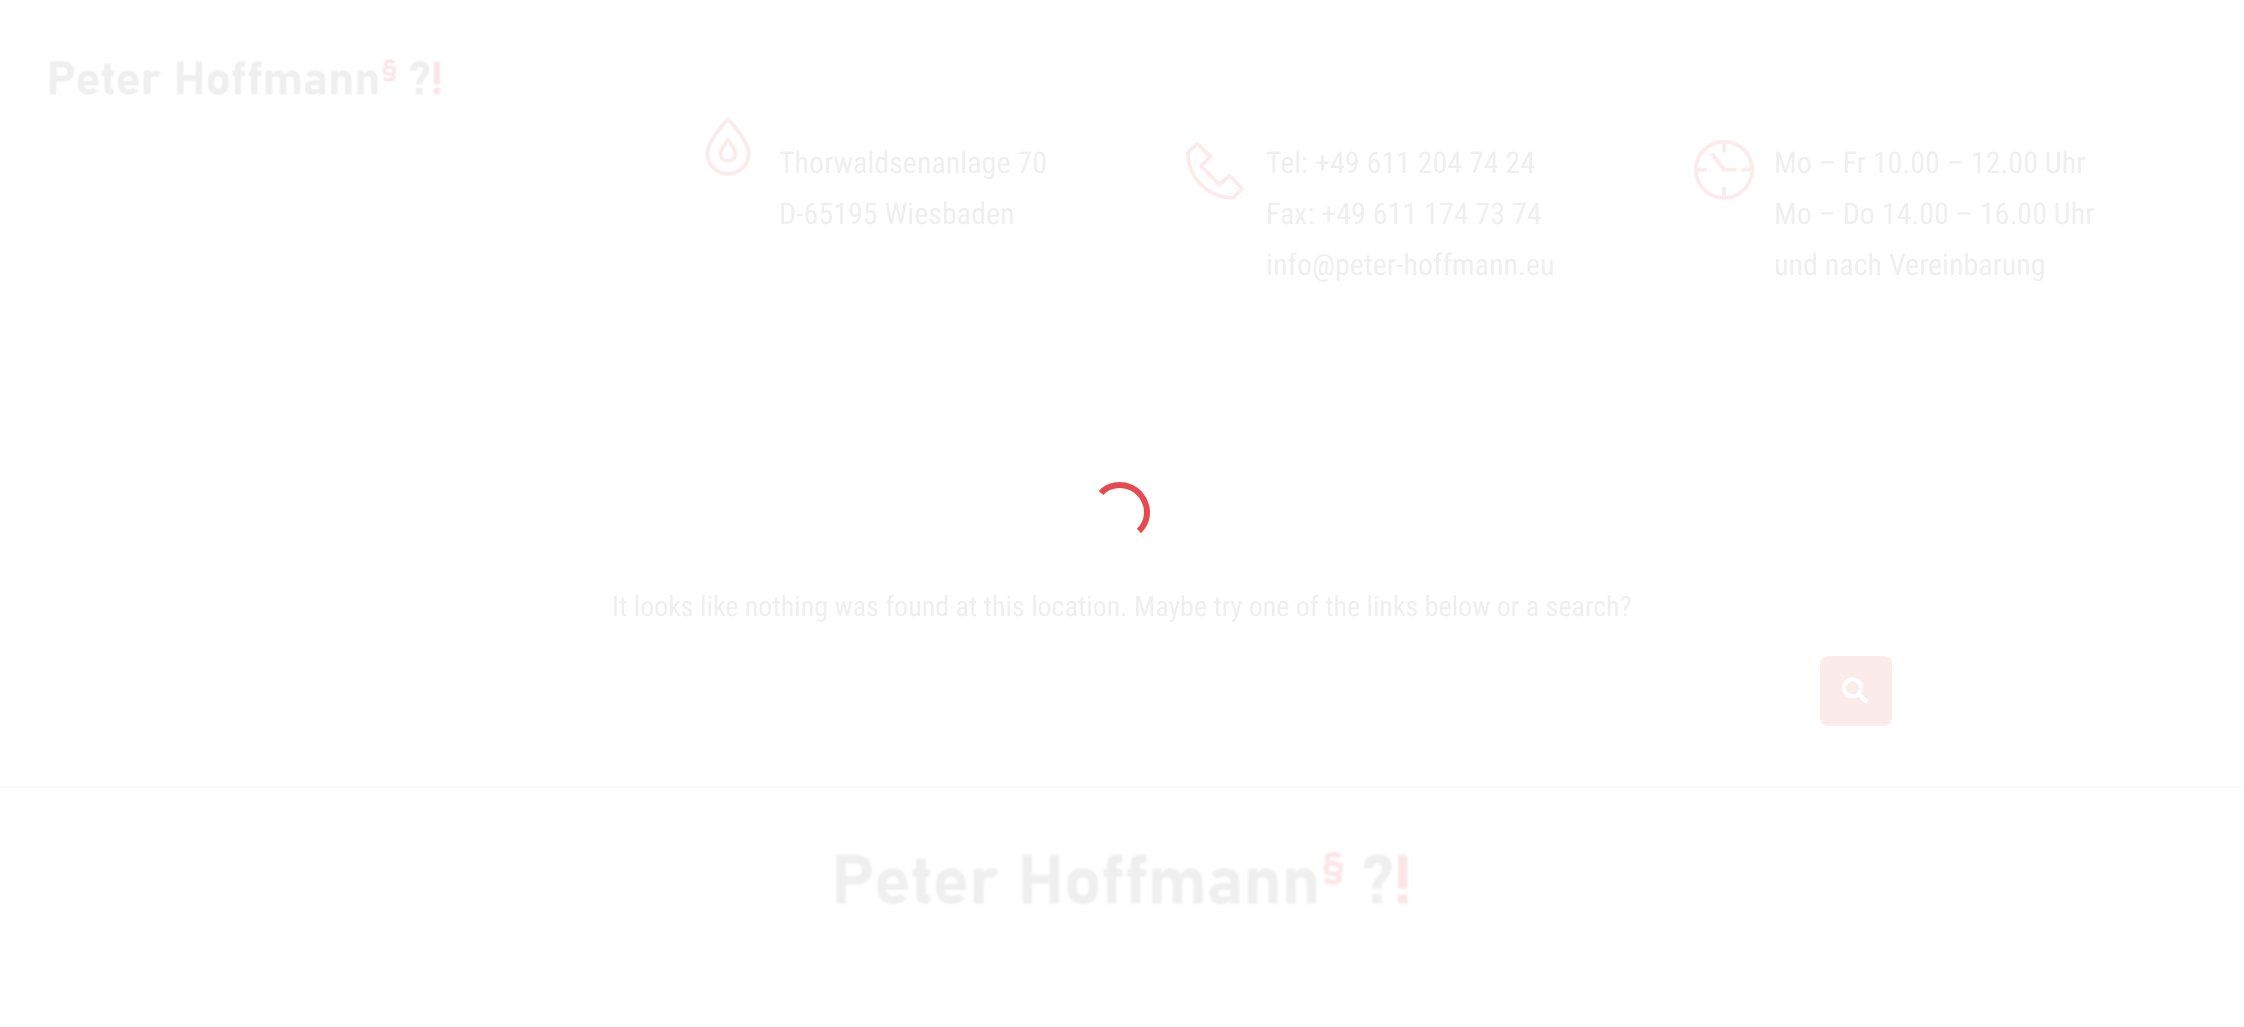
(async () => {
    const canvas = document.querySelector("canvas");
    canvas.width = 2244;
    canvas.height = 1027;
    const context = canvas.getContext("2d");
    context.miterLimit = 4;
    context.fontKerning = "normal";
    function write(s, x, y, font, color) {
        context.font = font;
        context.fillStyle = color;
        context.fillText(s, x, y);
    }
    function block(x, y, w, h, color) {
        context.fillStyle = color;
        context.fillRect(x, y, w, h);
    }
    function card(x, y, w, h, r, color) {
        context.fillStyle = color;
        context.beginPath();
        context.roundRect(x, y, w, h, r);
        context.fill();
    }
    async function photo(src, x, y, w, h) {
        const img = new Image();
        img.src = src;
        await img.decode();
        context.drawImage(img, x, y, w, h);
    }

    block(0, 0, 2244, 1027, "rgb(255, 255, 255)");
    await photo("media/1.png", 49, 59, 392, 36);
    await photo("media/2.png", 705, 117, 46, 59);
    write("Thorwaldsenanlage 70", 779, 173, "30px Roboto Condensed", "rgb(240, 239, 239)");
    write("D-65195 Wiesbaden", 779, 224, "30px Roboto Condensed", "rgb(240, 239, 239)");
    await photo("media/3.png", 1186, 141, 59, 59);
    write("Tel: +49 611 204 74 24", 1266, 173, "30px Roboto Condensed", "rgb(240, 239, 239)");
    write("Fax: +49 611 174 73 74", 1266, 224, "30px Roboto Condensed", "rgb(240, 239, 239)");
    write("info@peter-hoffmann.eu", 1266, 275, "30px Roboto Condensed", "rgb(240, 239, 239)");
    await photo("media/4.png", 1694, 139, 60, 61);
    write("Mo – Fr 10.00 – 12.00 Uhr", 1774, 173, "30px Roboto Condensed", "rgb(240, 239, 239)");
    write("Mo – Do 14.00 – 16.00 Uhr", 1774, 224, "30px Roboto Condensed", "rgb(240, 239, 239)");
    write("und nach Vereinbarung", 1774, 275, "30px Roboto Condensed", "rgb(240, 239, 239)");
    write("It looks like nothing was found at this location. Maybe try one of the links below or a search?", 612, 616, "28px Roboto Condensed", "rgb(240, 239, 239)");
    card(1820, 656, 72, 70, 8, "rgb(252, 235, 235)");
    await photo("media/5.png", 1842, 677, 26, 27);
    block(0, 786, 2244, 2, "rgb(252, 252, 252)");
    await photo("media/6.png", 835, 851, 574, 54);
    context.beginPath();
    context.moveTo(1101, 493);
    context.bezierCurveTo(1104.5, 489, 1109.5, 486.5, 1114.5, 485.5);
    context.bezierCurveTo(1140.5, 480.5, 1158, 512.5, 1139, 531);
    context.strokeStyle = "rgb(230, 74, 79)";
    context.lineWidth = 6;
    context.stroke();
})();
